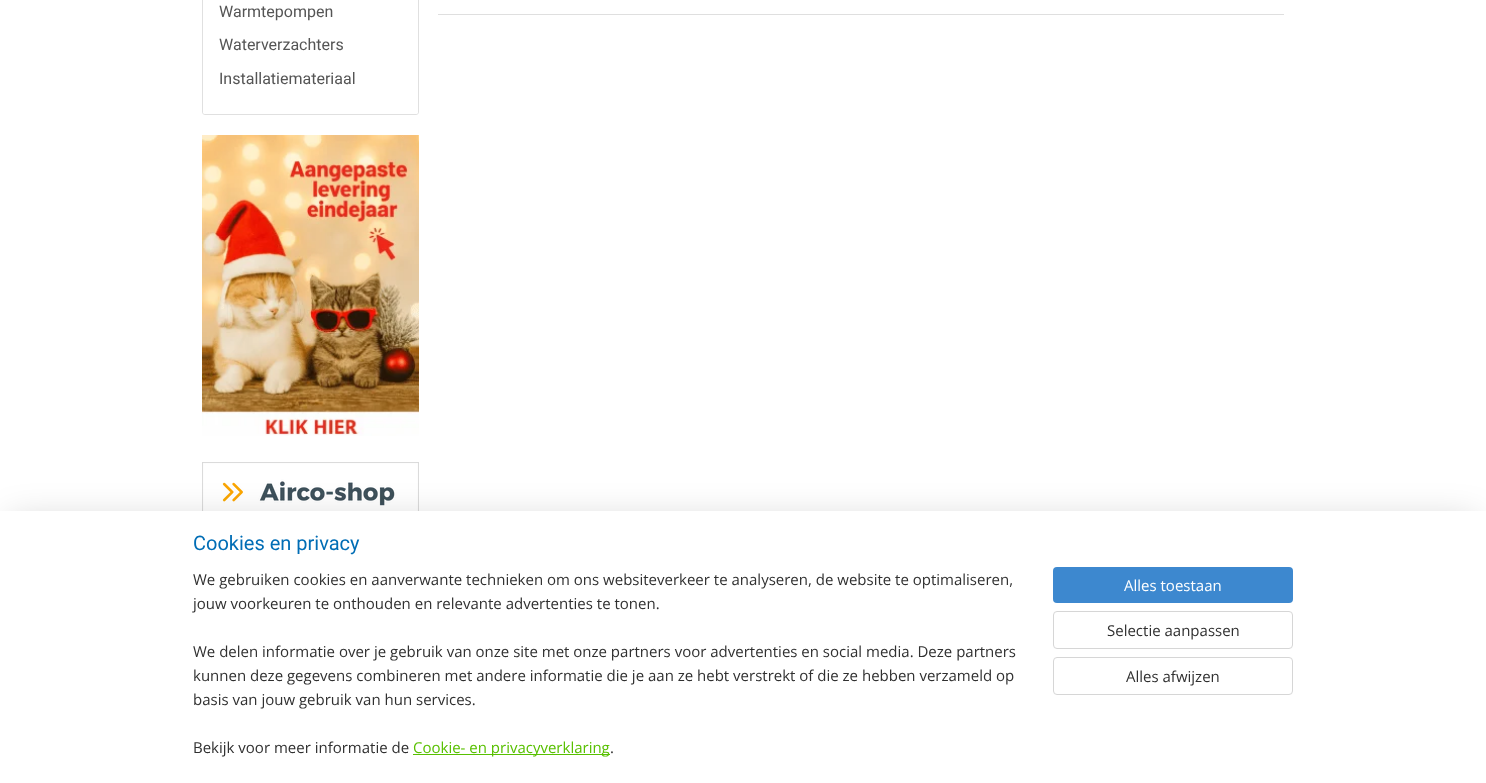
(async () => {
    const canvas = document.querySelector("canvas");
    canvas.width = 1486;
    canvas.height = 783;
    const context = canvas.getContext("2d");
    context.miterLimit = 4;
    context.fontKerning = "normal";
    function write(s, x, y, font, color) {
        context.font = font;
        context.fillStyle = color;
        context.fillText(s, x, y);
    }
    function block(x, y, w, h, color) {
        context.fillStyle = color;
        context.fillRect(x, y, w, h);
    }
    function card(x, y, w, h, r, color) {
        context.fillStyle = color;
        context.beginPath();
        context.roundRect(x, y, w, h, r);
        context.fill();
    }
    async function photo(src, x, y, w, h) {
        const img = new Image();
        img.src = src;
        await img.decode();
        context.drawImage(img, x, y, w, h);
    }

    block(0, 0, 1486, 783, "rgb(255, 255, 255)");
    context.beginPath();
    context.roundRect(202.5, -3.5, 216, 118, 2.5);
    context.strokeStyle = "rgb(224, 224, 224)";
    context.stroke();
    context.beginPath();
    context.moveTo(203, -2);
    context.lineTo(418, -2);
    context.lineTo(418, 112);
    context.bezierCurveTo(418, 113, 417, 114, 416, 114);
    context.lineTo(205, 114);
    context.bezierCurveTo(204, 114, 203, 113, 203, 112);
    context.closePath();
    context.fill();
    write("Warmtepompen", 219, 17, "16px Roboto", "rgb(85, 85, 85)");
    write("Waterverzachters", 219, 50, "16px Roboto", "rgb(85, 85, 85)");
    write("Installatiemateriaal", 219, 84, "16px Roboto", "rgb(85, 85, 85)");
    await photo("media/1.png", 202, 135, 217, 301);
    await photo("media/2.png", 202, 462, 217, 49);
    block(438, 14, 846, 1, "rgb(223, 223, 223)");
    context.fillStyle = "rgba(0, 0, 0, 0.2)";
    context.filter = "blur(18px)";
    context.beginPath();
    context.rect(10, 521, 1466, 252);
    context.fill();
    context.filter = "none";
    block(0, 511, 1486, 272, "rgb(255, 255, 255)");
    write("Cookies en privacy", 193, 550, "20px Roboto", "rgb(0, 109, 181)");
    write("We gebruiken cookies en aanverwante technieken om ons websiteverkeer te analyseren, de website te optimaliseren,", 193, 585, "15px Open Sans", "rgb(48, 48, 48)");
    write("jouw voorkeuren te onthouden en relevante advertenties te tonen.", 193, 609, "15px Open Sans", "rgb(48, 48, 48)");
    write("We delen informatie over je gebruik van onze site met onze partners voor advertenties en social media. Deze partners", 193, 657, "15px Open Sans", "rgb(48, 48, 48)");
    write("kunnen deze gegevens combineren met andere informatie die je aan ze hebt verstrekt of die ze hebben verzameld op", 193, 681, "15px Open Sans", "rgb(48, 48, 48)");
    write("basis van jouw gebruik van hun services.", 193, 705, "15px Open Sans", "rgb(48, 48, 48)");
    write("Bekijk voor meer informatie de", 193, 753, "15px Open Sans", "rgb(48, 48, 48)");
    block(413, 754, 197, 1, "rgb(88, 192, 1)");
    write("Cookie- en privacyverklaring", 413, 753, "15px Open Sans", "rgb(88, 192, 1)");
    write(".", 610, 753, "15px Open Sans", "rgb(48, 48, 48)");
    card(1053, 567, 240, 36, 4, "rgb(61, 136, 207)");
    write("Alles toestaan", 1124, 591, "15px Open Sans", "rgb(255, 255, 255)");
    context.beginPath();
    context.roundRect(1053.5, 611.5, 239, 37, 3.5);
    context.strokeStyle = "rgb(214, 214, 214)";
    context.stroke();
    write("Selectie aanpassen", 1107, 636, "15px Open Sans", "rgb(48, 48, 48)");
    context.beginPath();
    context.roundRect(1053.5, 657.5, 239, 37, 3.5);
    context.stroke();
    write("Alles afwijzen", 1126, 682, "15px Open Sans", "rgb(48, 48, 48)");
})();
